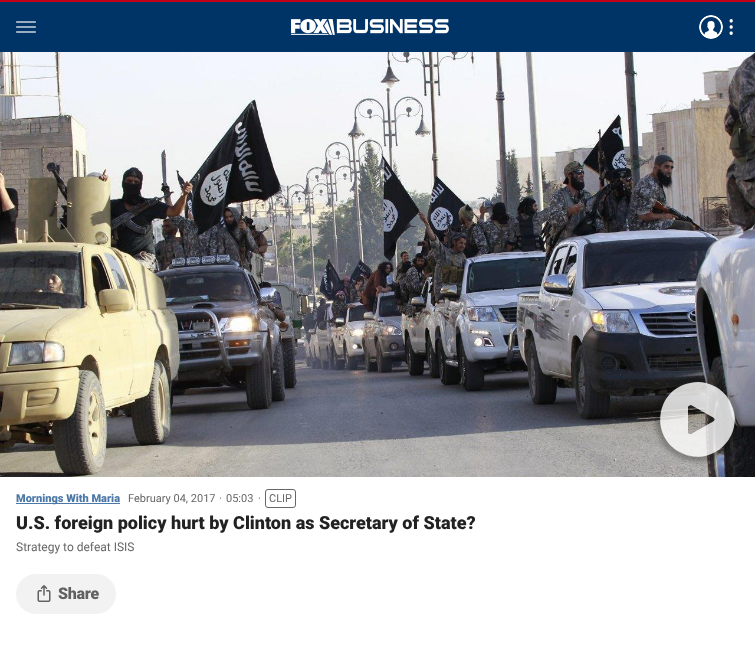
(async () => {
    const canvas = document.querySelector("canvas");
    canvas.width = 755;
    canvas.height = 652;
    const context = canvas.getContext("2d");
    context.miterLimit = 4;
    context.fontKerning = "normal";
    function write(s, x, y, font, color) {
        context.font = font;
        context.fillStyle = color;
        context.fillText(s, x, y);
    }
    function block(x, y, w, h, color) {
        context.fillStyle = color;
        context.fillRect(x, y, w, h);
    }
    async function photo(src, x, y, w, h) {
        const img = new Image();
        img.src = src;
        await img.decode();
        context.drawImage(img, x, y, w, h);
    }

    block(0, 0, 755, 652, "rgb(255, 255, 255)");
    block(0, 2, 755, 50, "rgb(0, 51, 102)");
    block(0, 0, 755, 2, "rgb(194, 0, 23)");
    await photo("media/1.png", 16, 21, 20, 12);
    await photo("media/2.png", 291, 19, 158, 16);
    await photo("media/3.png", 699, 15, 24, 24);
    await photo("media/4.png", 729, 19, 4, 16);
    await photo("media/5.png", 0, 52, 755, 425);
    context.save();
    context.beginPath();
    context.moveTo(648, 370);
    context.lineTo(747, 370);
    context.lineTo(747, 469);
    context.lineTo(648, 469);
    context.closePath();
    context.moveTo(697.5, 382);
    context.bezierCurveTo(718, 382, 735, 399, 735, 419.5);
    context.bezierCurveTo(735, 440, 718, 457, 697.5, 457);
    context.bezierCurveTo(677, 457, 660, 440, 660, 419.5);
    context.bezierCurveTo(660, 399, 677, 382, 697.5, 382);
    context.closePath();
    context.clip("evenodd");
    context.fillStyle = "rgba(0, 0, 0, 0.24)";
    context.filter = "blur(2px)";
    context.beginPath();
    context.roundRect(655, 377, 85, 85, 42.5);
    context.fill();
    context.filter = "none";
    context.restore();
    context.fillStyle = "rgba(255, 255, 255, 0.8)";
    context.beginPath();
    context.moveTo(714, 386);
    context.bezierCurveTo(706, 382, 698, 381, 690, 383);
    context.bezierCurveTo(654, 390, 650, 439, 682, 453);
    context.bezierCurveTo(713, 468, 746, 435, 731, 404);
    context.bezierCurveTo(728, 396, 721, 389, 714, 386);
    context.closePath();
    context.moveTo(714, 421);
    context.bezierCurveTo(715, 420, 715, 419, 714, 418);
    context.lineTo(691, 405);
    context.bezierCurveTo(690, 405, 688, 406, 688, 407);
    context.lineTo(688, 432);
    context.bezierCurveTo(688, 434, 690, 434, 691, 434);
    context.closePath();
    context.fill("evenodd");
    block(16, 503, 104, 1, "rgb(75, 120, 167)");
    write("Mornings With Maria", 16, 502, "900 11px Roboto", "rgb(75, 120, 167)");
    write("February 04, 2017", 128, 502, "11px Roboto", "rgb(102, 102, 102)");
    write("·", 219, 502, "11px Roboto", "rgb(102, 102, 102)");
    write("05:03", 226, 502, "11px Roboto", "rgb(102, 102, 102)");
    write("·", 258, 502, "11px Roboto", "rgb(102, 102, 102)");
    context.beginPath();
    context.roundRect(265.5, 489.5, 30, 18, 2.5);
    context.strokeStyle = "rgb(102, 102, 102)";
    context.stroke();
    write("CLIP", 269, 502, "11px Roboto", "rgb(102, 102, 102)");
    write("U.S. foreign policy hurt by Clinton as Secretary of State?", 16, 529, "900 18px Roboto", "rgb(34, 34, 34)");
    write("Strategy to defeat ISIS", 16, 551, "12px Roboto", "rgb(102, 102, 102)");
    await photo("media/6.png", 16, 574, 100, 40);
})();
